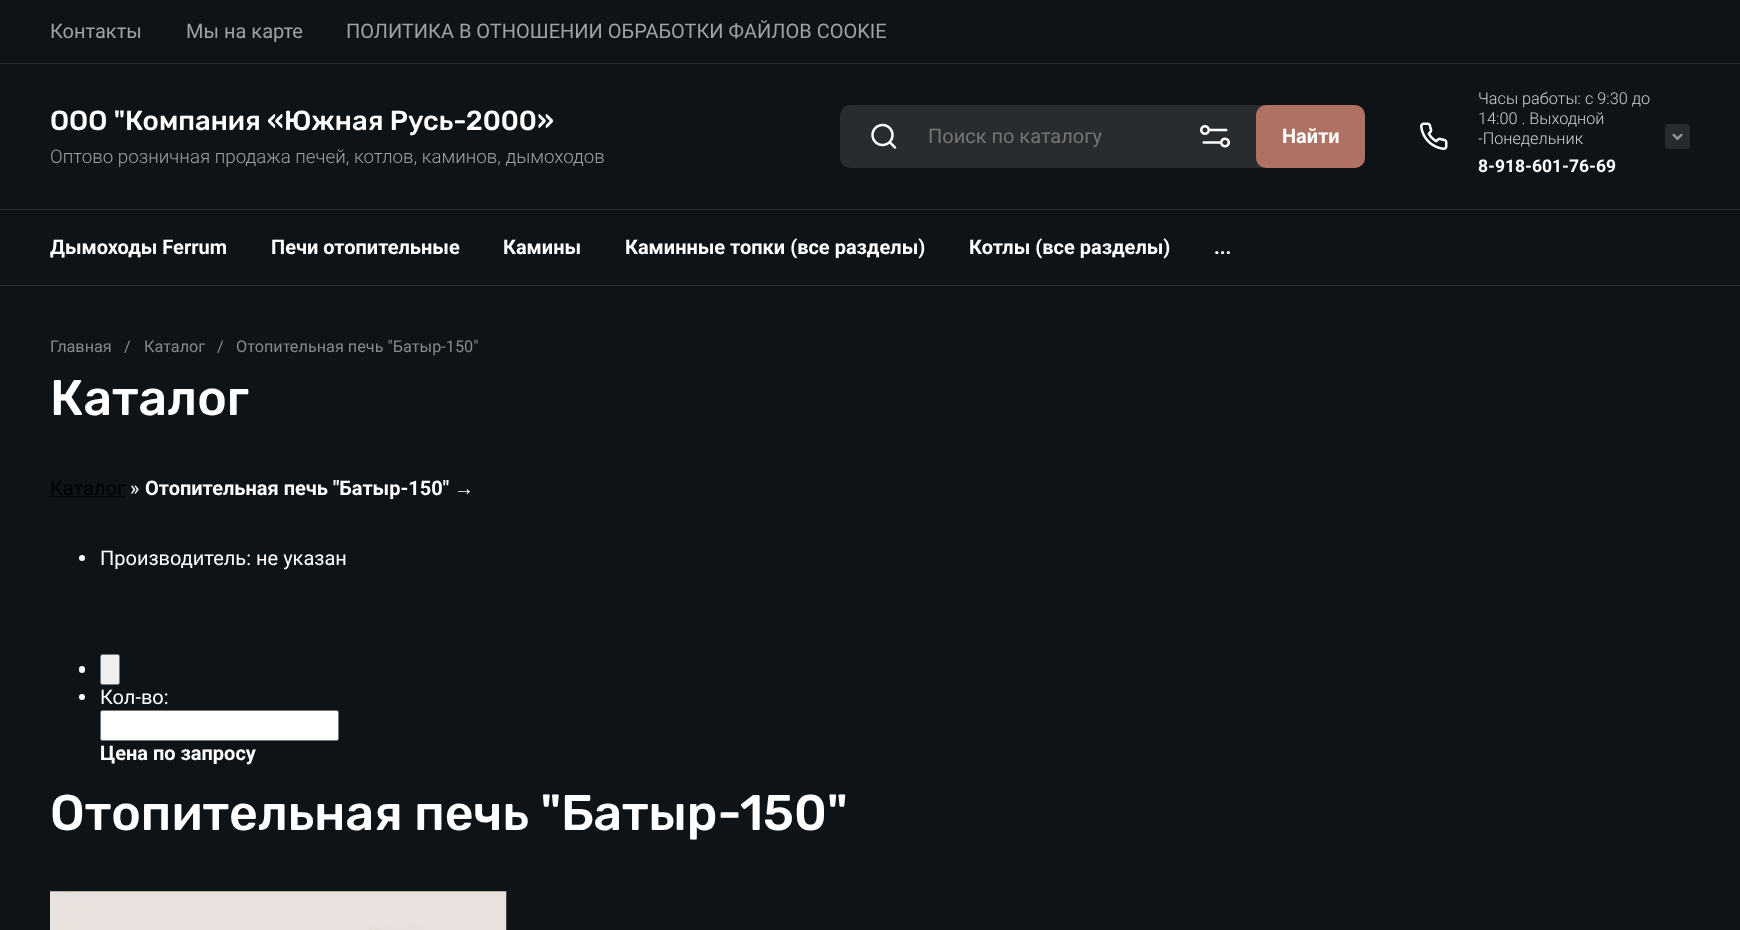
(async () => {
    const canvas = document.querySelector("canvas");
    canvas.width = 1740;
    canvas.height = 930;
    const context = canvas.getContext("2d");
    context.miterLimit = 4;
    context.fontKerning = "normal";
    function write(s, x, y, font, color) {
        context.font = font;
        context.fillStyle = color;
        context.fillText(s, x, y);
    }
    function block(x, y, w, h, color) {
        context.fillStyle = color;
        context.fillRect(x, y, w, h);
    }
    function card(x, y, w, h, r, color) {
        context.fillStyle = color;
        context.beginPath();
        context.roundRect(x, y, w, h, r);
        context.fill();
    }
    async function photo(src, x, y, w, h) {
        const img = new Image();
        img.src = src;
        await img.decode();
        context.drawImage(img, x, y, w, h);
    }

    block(0, 0, 1740, 930, "rgb(14, 19, 23)");
    block(0, 63, 1740, 1, "rgb(38, 43, 46)");
    write("Контакты", 50, 38, "20px Roboto", "rgb(159, 161, 162)");
    write("Мы на карте", 186, 38, "20px Roboto", "rgb(159, 161, 162)");
    write("ПОЛИТИКА В ОТНОШЕНИИ ОБРАБОТКИ ФАЙЛОВ COOKIE", 346, 38, "20px Roboto", "rgb(159, 161, 162)");
    block(0, 209, 1740, 1, "rgb(38, 43, 46)");
    write("ООО \"Компания «Южная Русь-2000»", 50, 130, "500 27.5px Rubik", "rgb(255, 255, 255)");
    write("Оптово розничная продажа печей, котлов, каминов, дымоходов", 50, 163, "300 18.75px Roboto", "rgb(159, 161, 162)");
    card(840, 105, 525, 63, 10, "rgb(40, 44, 46)");
    await photo("media/1.png", 1200, 125, 30, 23);
    await photo("media/2.png", 871, 123, 26, 26);
    write("Поиск по каталогу", 928, 143, "20px Roboto", "rgb(117, 117, 117)");
    card(1256, 105, 109, 63, 10, "rgb(175, 113, 99)");
    write("Найти", 1282, 143, "bold 20px Roboto", "rgb(255, 255, 255)");
    await photo("media/3.png", 1420, 122, 28, 28);
    write("Часы работы: с 9:30 до", 1478, 104, "300 16.25px Roboto", "rgb(207, 208, 209)");
    write("14:00 . Выходной", 1478, 124, "300 16.25px Roboto", "rgb(207, 208, 209)");
    write("-Понедельник", 1478, 144, "300 16.25px Roboto", "rgb(207, 208, 209)");
    card(1665, 124, 25, 25, 4, "rgb(38, 43, 46)");
    await photo("media/4.png", 1672, 133, 11, 7);
    write("8-918-601-76-69", 1478, 172, "bold 17.5px Roboto", "rgb(255, 255, 255)");
    block(0, 285, 1740, 1, "rgb(38, 43, 46)");
    write("Дымоходы Ferrum", 50, 254, "bold 20px Roboto", "rgb(255, 255, 255)");
    write("Печи отопительные", 271, 254, "bold 20px Roboto", "rgb(255, 255, 255)");
    write("Камины", 503, 254, "bold 20px Roboto", "rgb(255, 255, 255)");
    write("Каминные топки (все разделы)", 625, 254, "bold 20px Roboto", "rgb(255, 255, 255)");
    write("Котлы (все разделы)", 969, 254, "bold 20px Roboto", "rgb(255, 255, 255)");
    write("...", 1214, 254, "bold 20px Roboto", "rgb(255, 255, 255)");
    write("Главная", 50, 352, "16.25px Roboto", "rgb(135, 137, 139)");
    write("/", 124, 352, "16.25px Roboto", "rgb(135, 137, 139)");
    write("Каталог", 144, 352, "16.25px Roboto", "rgb(135, 137, 139)");
    write("/", 217, 352, "16.25px Roboto", "rgb(135, 137, 139)");
    write("Отопительная печь \"Батыр-150\"", 236, 352, "16.25px Roboto", "rgb(135, 137, 139)");
    write("Каталог", 50, 415, "500 50px Rubik", "rgb(255, 255, 255)");
    write("Каталог", 50, 495, "20px Roboto", "rgb(0, 0, 0)");
    block(50, 496, 75, 1, "rgb(0, 0, 0)");
    write("»", 130, 495, "20px Roboto", "rgb(255, 255, 255)");
    write("Отопительная печь \"Батыр-150\"", 145, 495, "bold 20px Roboto", "rgb(255, 255, 255)");
    write("→", 454, 495, "20px Liberation Sans", "rgb(255, 255, 255)");
    context.beginPath();
    context.arc(82, 558, 3, 0, Math.PI * 2);
    context.fill();
    write("Производитель: не указан", 100, 565, "20px Roboto", "rgb(255, 255, 255)");
    card(79, 666, 6, 7, 3, "rgb(255, 255, 255)");
    context.fillStyle = "rgb(239, 239, 239)";
    context.beginPath();
    context.roundRect(100.5, 654.5, 19, 30, 2);
    context.fill();
    context.strokeStyle = "rgb(118, 118, 118)";
    context.stroke();
    context.fillStyle = "rgb(255, 255, 255)";
    context.beginPath();
    context.arc(82, 697, 3, 0, Math.PI * 2);
    context.fill();
    write("Кол-во:", 100, 704, "20px Roboto", "rgb(255, 255, 255)");
    context.beginPath();
    context.roundRect(100.5, 710.5, 238, 30, 2);
    context.fill();
    context.stroke();
    write("Цена по запросу", 100, 760, "bold 20px Roboto", "rgb(255, 255, 255)");
    write("Отопительная печь \"Батыр-150\"", 50, 830, "500 50px Rubik", "rgb(255, 255, 255)");
    await photo("media/5.png", 50, 891, 457, 39);
})();
